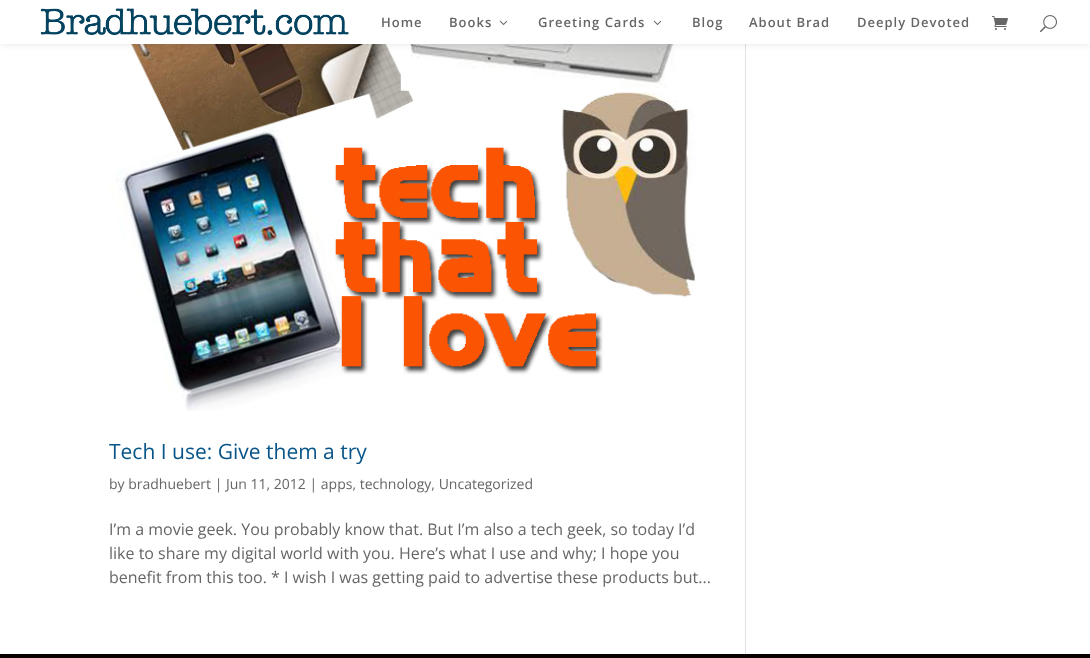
(async () => {
    const canvas = document.querySelector("canvas");
    canvas.width = 1090;
    canvas.height = 658;
    const context = canvas.getContext("2d");
    context.miterLimit = 4;
    context.fontKerning = "normal";
    function write(s, x, y, font, color) {
        context.font = font;
        context.fillStyle = color;
        context.fillText(s, x, y);
    }
    function block(x, y, w, h, color) {
        context.fillStyle = color;
        context.fillRect(x, y, w, h);
    }
    async function photo(src, x, y, w, h) {
        const img = new Image();
        img.src = src;
        await img.decode();
        context.drawImage(img, x, y, w, h);
    }

    block(0, 0, 1090, 658, "rgb(255, 255, 255)");
    await photo("media/5.png", 109, 44, 586, 367);
    block(745, 44, 1, 610, "rgb(226, 226, 226)");
    context.fillStyle = "rgba(0, 0, 0, 0.1)";
    context.filter = "blur(3.5px)";
    context.beginPath();
    context.rect(0, 0, 1090, 44);
    context.fill();
    context.filter = "none";
    block(0, 0, 1090, 44, "rgb(255, 255, 255)");
    await photo("media/1.png", 40, 8, 309, 27);
    context.letterSpacing = "1px";
    write("Home", 381, 27, "600 13px Open Sans", "rgb(102, 102, 102)");
    write("Books", 449, 27, "600 13px Open Sans", "rgb(102, 102, 102)");
    await photo("media/2.png", 499, 20, 9, 5);
    write("Greeting Cards", 538, 27, "600 13px Open Sans", "rgb(102, 102, 102)");
    await photo("media/2.png", 653, 20, 9, 5);
    write("Blog", 692, 27, "600 13px Open Sans", "rgb(102, 102, 102)");
    write("About Brad", 749, 27, "600 13px Open Sans", "rgb(102, 102, 102)");
    write("Deeply Devoted", 857, 27, "600 13px Open Sans", "rgb(102, 102, 102)");
    await photo("media/3.png", 992, 16, 16, 14);
    await photo("media/4.png", 1040, 15, 17, 18);
    context.letterSpacing = "0px";
    write("Tech I use: Give them a try", 109, 459, "21px Open Sans", "rgb(8, 85, 137)");
    write("by bradhuebert | Jun 11, 2012 | apps, technology, Uncategorized", 109, 489, "14px Open Sans", "rgb(102, 102, 102)");
    write("I’m a movie geek. You probably know that. But I’m also a tech geek, so today I’d", 109, 535, "16px Open Sans", "rgb(102, 102, 102)");
    write("like to share my digital world with you. Here’s what I use and why; I hope you", 109, 559, "16px Open Sans", "rgb(102, 102, 102)");
    write("benefit from this too. * I wish I was getting paid to advertise these products but...", 109, 583, "16px Open Sans", "rgb(102, 102, 102)");
    block(0, 654, 1090, 4, "rgb(10, 0, 0)");
})();
